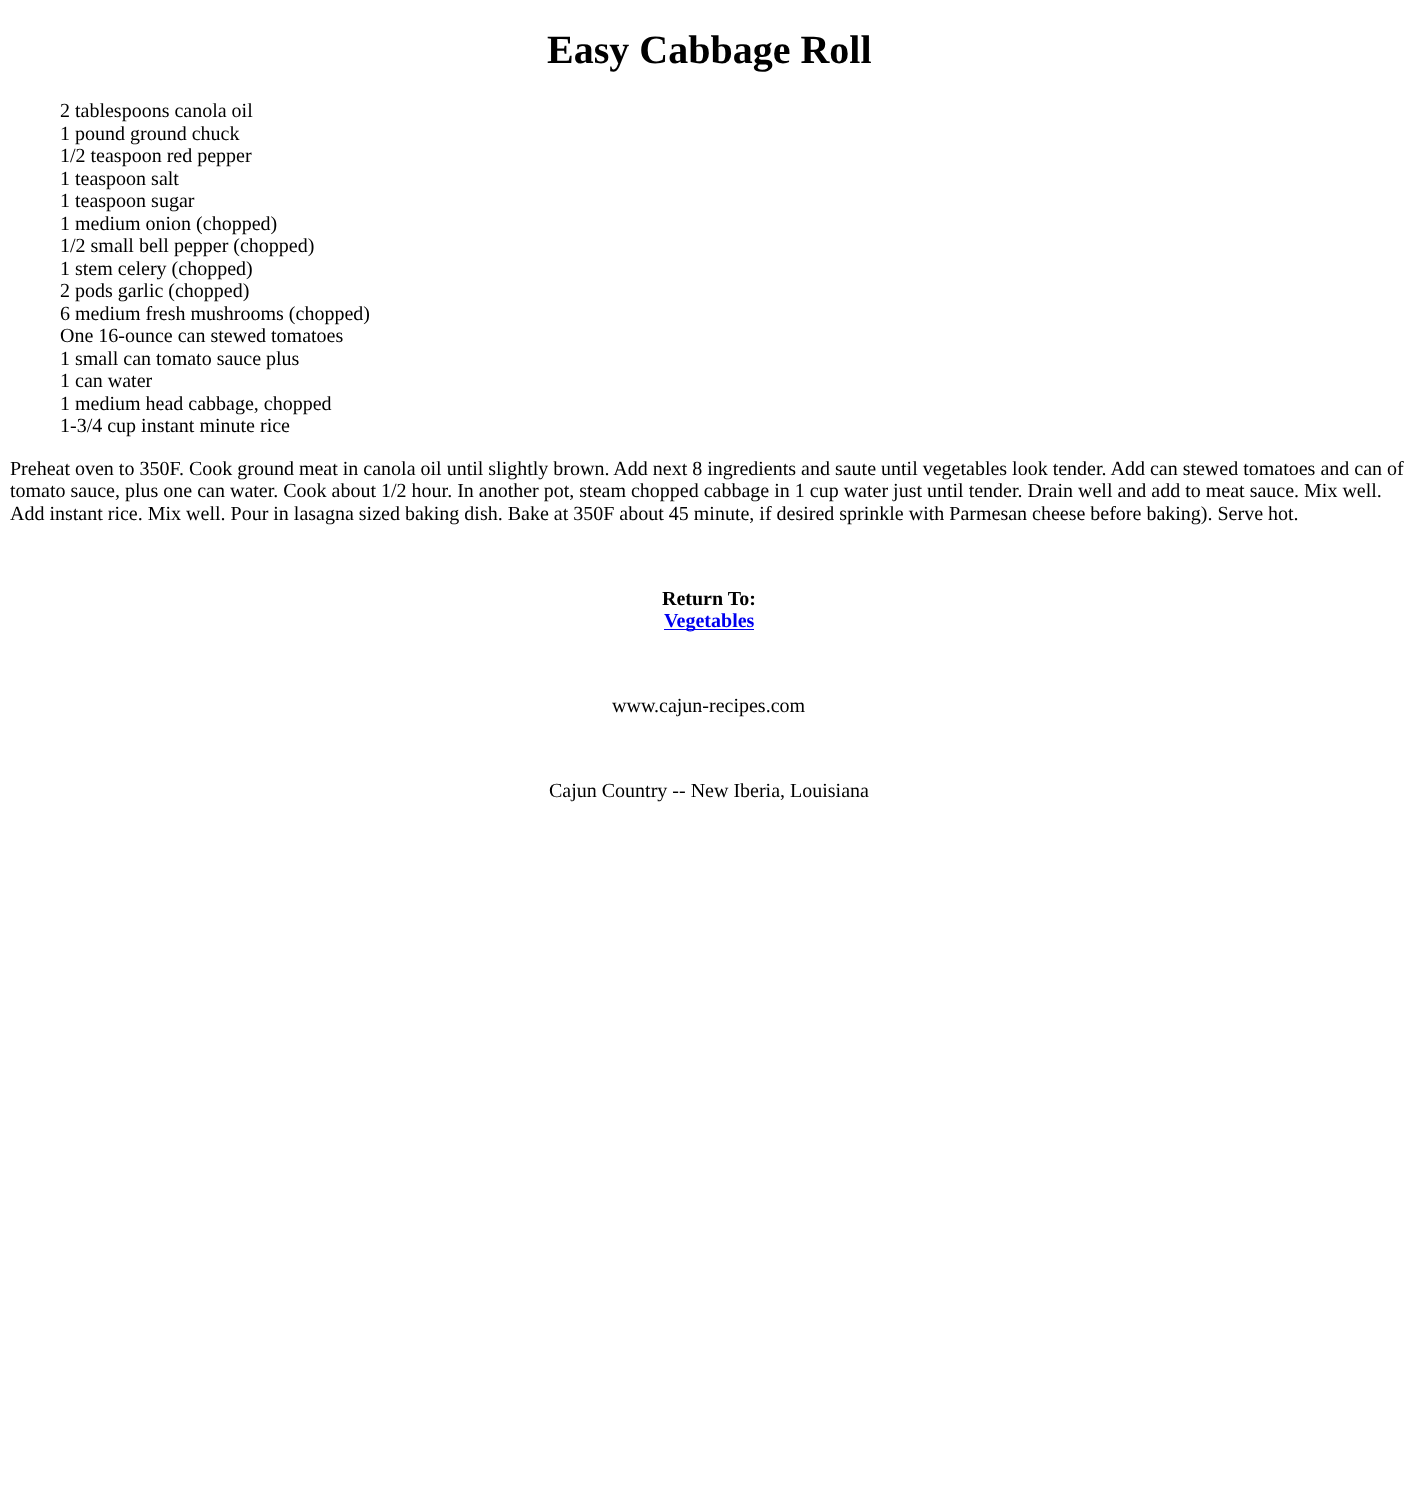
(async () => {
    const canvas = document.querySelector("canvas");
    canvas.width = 1417;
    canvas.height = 1492;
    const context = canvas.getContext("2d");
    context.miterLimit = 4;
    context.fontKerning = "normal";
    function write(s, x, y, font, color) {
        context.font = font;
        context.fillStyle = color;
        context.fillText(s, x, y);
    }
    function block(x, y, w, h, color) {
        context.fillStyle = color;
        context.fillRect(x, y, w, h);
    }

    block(0, 0, 1417, 1492, "rgb(255, 255, 255)");
    write("Easy Cabbage Roll", 547, 63, "bold 40px Liberation Serif", "rgb(0, 0, 0)");
    write("2 tablespoons canola oil", 60, 117, "20px Liberation Serif", "rgb(0, 0, 0)");
    write("1 pound ground chuck", 60, 140, "20px Liberation Serif", "rgb(0, 0, 0)");
    write("1/2 teaspoon red pepper", 60, 162, "20px Liberation Serif", "rgb(0, 0, 0)");
    write("1 teaspoon salt", 60, 185, "20px Liberation Serif", "rgb(0, 0, 0)");
    write("1 teaspoon sugar", 60, 207, "20px Liberation Serif", "rgb(0, 0, 0)");
    write("1 medium onion (chopped)", 60, 230, "20px Liberation Serif", "rgb(0, 0, 0)");
    write("1/2 small bell pepper (chopped)", 60, 252, "20px Liberation Serif", "rgb(0, 0, 0)");
    write("1 stem celery (chopped)", 60, 275, "20px Liberation Serif", "rgb(0, 0, 0)");
    write("2 pods garlic (chopped)", 60, 297, "20px Liberation Serif", "rgb(0, 0, 0)");
    write("6 medium fresh mushrooms (chopped)", 60, 320, "20px Liberation Serif", "rgb(0, 0, 0)");
    write("One 16-ounce can stewed tomatoes", 60, 342, "20px Liberation Serif", "rgb(0, 0, 0)");
    write("1 small can tomato sauce plus", 60, 365, "20px Liberation Serif", "rgb(0, 0, 0)");
    write("1 can water", 60, 387, "20px Liberation Serif", "rgb(0, 0, 0)");
    write("1 medium head cabbage, chopped", 60, 410, "20px Liberation Serif", "rgb(0, 0, 0)");
    write("1-3/4 cup instant minute rice", 60, 432, "20px Liberation Serif", "rgb(0, 0, 0)");
    write("Preheat oven to 350F. Cook ground meat in canola oil until slightly brown. Add next 8 ingredients and saute until vegetables look tender. Add can stewed tomatoes and can of", 10, 475, "20px Liberation Serif", "rgb(0, 0, 0)");
    write("tomato sauce, plus one can water. Cook about 1/2 hour. In another pot, steam chopped cabbage in 1 cup water just until tender. Drain well and add to meat sauce. Mix well.", 10, 497, "20px Liberation Serif", "rgb(0, 0, 0)");
    write("Add instant rice. Mix well. Pour in lasagna sized baking dish. Bake at 350F about 45 minute, if desired sprinkle with Parmesan cheese before baking). Serve hot.", 10, 520, "20px Liberation Serif", "rgb(0, 0, 0)");
    write("Return To:", 662, 605, "bold 20px Liberation Serif", "rgb(0, 0, 0)");
    block(664, 629, 90, 1, "rgb(0, 0, 238)");
    write("Vegetables", 664, 627, "bold 20px Liberation Serif", "rgb(0, 0, 238)");
    write("www.cajun-recipes.com", 612, 712, "20px Liberation Serif", "rgb(0, 0, 0)");
    write("Cajun Country -- New Iberia, Louisiana", 549, 797, "20px Liberation Serif", "rgb(0, 0, 0)");
})();
